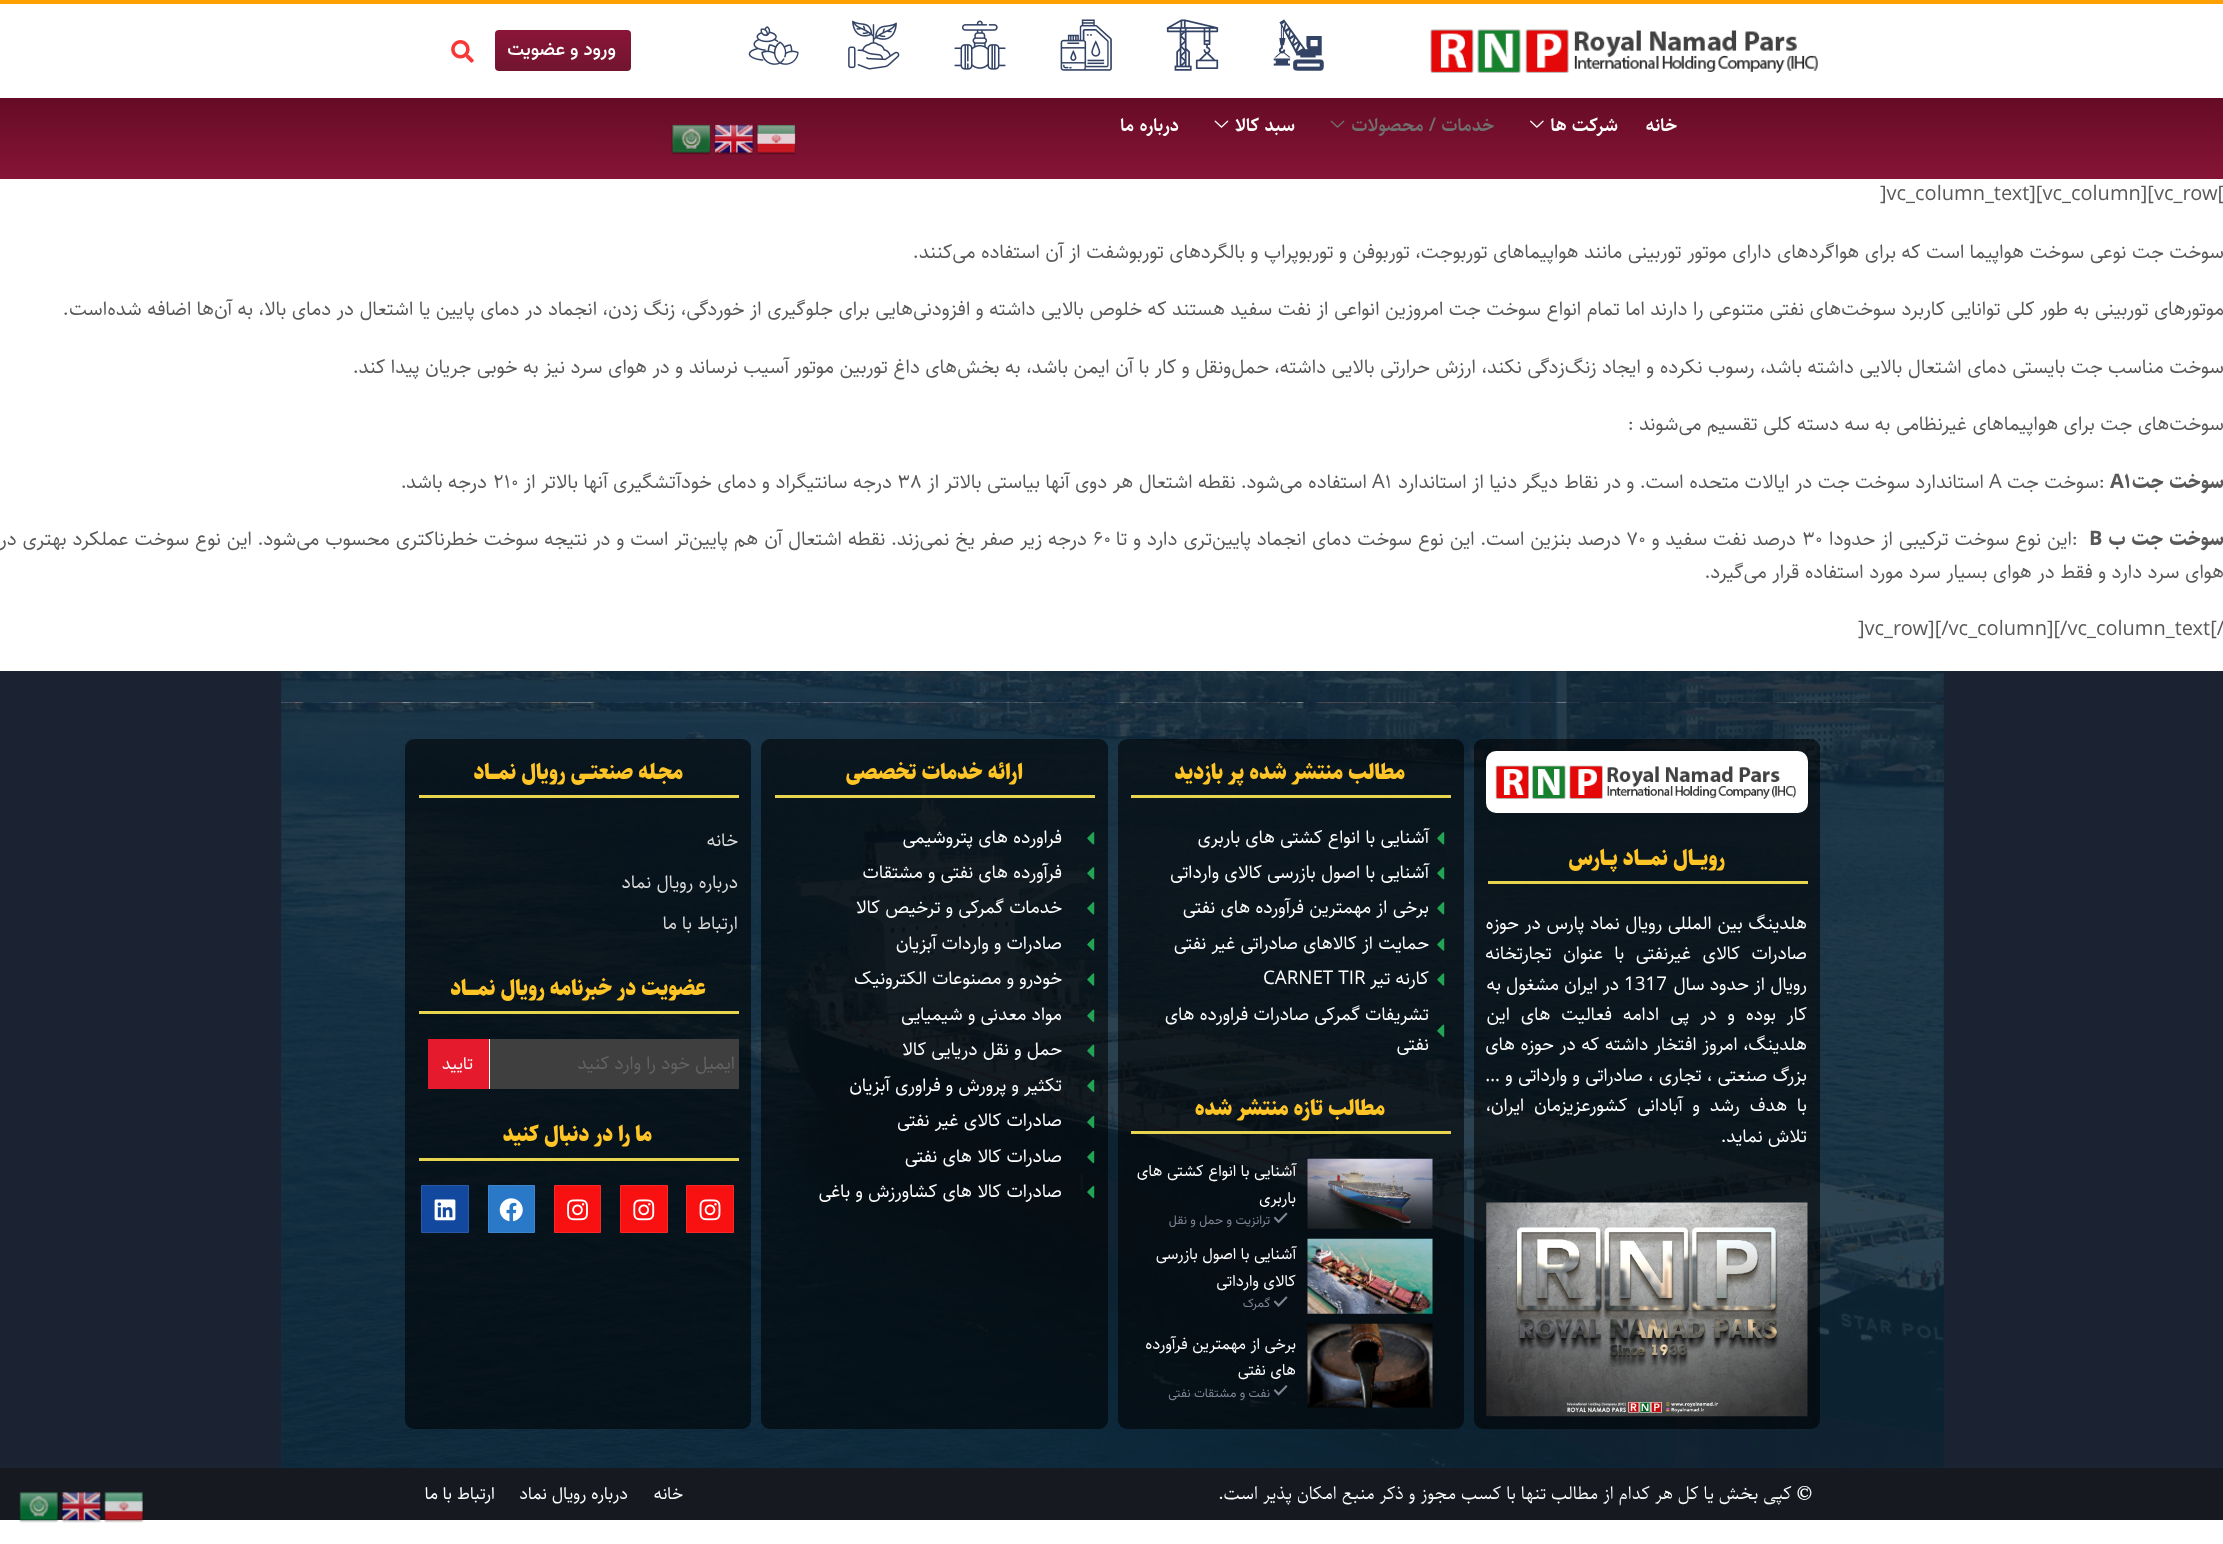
(async () => {
    const canvas = document.querySelector("canvas");
    canvas.width = 2223;
    canvas.height = 1544;
    const context = canvas.getContext("2d");
    context.miterLimit = 4;
    context.fontKerning = "normal";
    function write(s, x, y, font, color) {
        context.font = font;
        context.fillStyle = color;
        context.fillText(s, x, y);
    }
    function block(x, y, w, h, color) {
        context.fillStyle = color;
        context.fillRect(x, y, w, h);
    }
    function card(x, y, w, h, r, color) {
        context.fillStyle = color;
        context.beginPath();
        context.roundRect(x, y, w, h, r);
        context.fill();
    }
    async function photo(src, x, y, w, h) {
        const img = new Image();
        img.src = src;
        await img.decode();
        context.drawImage(img, x, y, w, h);
    }
    let gradient;

    block(0, 0, 2223, 1544, "rgb(255, 255, 255)");
    block(0, 0, 2223, 4, "rgb(254, 160, 0)");
    await photo("media/1.png", 1430, 29, 388, 44);
    await photo("media/2.png", 1273, 19, 51, 52);
    await photo("media/3.png", 1166, 19, 53, 52);
    await photo("media/4.png", 1060, 19, 52, 52);
    await photo("media/5.png", 954, 20, 52, 50);
    await photo("media/6.png", 848, 20, 52, 50);
    await photo("media/7.png", 748, 26, 51, 39);
    gradient = context.createLinearGradient(563, 30, 563, 71);
    gradient.addColorStop(0, "rgb(138, 21, 56)");
    gradient.addColorStop(1, "rgb(113, 21, 49)");
    context.fillStyle = gradient;
    context.beginPath();
    context.roundRect(495, 30, 136, 41, 4);
    context.fill();
    context.direction = "rtl";
    write("ورود و عضویت", 616, 55, "500 18.75px Vazirmatn", "rgb(255, 255, 255)");
    await photo("media/8.png", 451, 40, 23, 23);
    gradient = context.createLinearGradient(1112, 97, 1112, 179);
    gradient.addColorStop(0, "rgb(101, 11, 38)");
    gradient.addColorStop(1, "rgb(134, 20, 54)");
    context.fillStyle = gradient;
    context.fillRect(0, 98, 2223, 81);
    write("خانه", 1677, 131, "600 18.75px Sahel", "rgb(255, 255, 255)");
    write("شرکت ها", 1618, 131, "600 18.75px Sahel", "rgb(255, 255, 255)");
    await photo("media/9.png", 1530, 120, 14, 8);
    write("خدمات / محصولات", 1494, 131, "600 18.75px Sahel", "rgb(112, 112, 112)");
    await photo("media/10.png", 1330, 120, 15, 8);
    write("سبد کالا", 1295, 131, "600 18.75px Sahel", "rgb(255, 255, 255)");
    await photo("media/11.png", 1214, 120, 15, 8);
    write("درباره ما", 1179, 131, "600 18.75px Sahel", "rgb(255, 255, 255)");
    await photo("media/12.png", 756, 124, 40, 31);
    await photo("media/13.png", 714, 124, 40, 31);
    await photo("media/14.png", 671, 124, 40, 31);
    context.direction = "ltr";
    write("]vc_column_text][vc_column][vc_row[", 1880, 200, "20px Sahel", "rgb(89, 89, 89)");
    context.direction = "rtl";
    write("سوخت جت نوعی سوخت هواپیما است که برای هواگردهای دارای موتور توربینی مانند هواپیماهای توربوجت، توربوفن و توربوپراپ و بالگردهای توربوشفت از آن استفاده می‌کنند", 2224, 258, "20px Sahel", "rgb(89, 89, 89)");
    context.direction = "ltr";
    write(".", 913, 258, "20px Sahel", "rgb(89, 89, 89)");
    context.direction = "rtl";
    write("موتورهای توربینی به طور کلی توانایی کاربرد سوخت‌های نفتی متنوعی را دارند اما تمام انواع سوخت جت امروزین انواعی از نفت سفید هستند که خلوص بالایی داشته و افزودنی‌هایی برای جلوگیری از خوردگی، زنگ زدن، انجماد در دمای پایین یا اشتعال در دمای بالا، به آن‌ها اضافه شده‌است", 2224, 315, "20px Sahel", "rgb(89, 89, 89)");
    context.direction = "ltr";
    write(".", 63, 315, "20px Sahel", "rgb(89, 89, 89)");
    context.direction = "rtl";
    write("سوخت مناسب جت بایستی دمای اشتعال بالایی داشته باشد، رسوب نکرده و ایجاد زنگ‌زدگی نکند، ارزش حرارتی بالایی داشته، حمل‌ونقل و کار با آن ایمن باشد، به بخش‌های داغ توربین موتور آسیب نرساند و در هوای سرد نیز به خوبی جریان پیدا کند.", 2224, 373, "20px Sahel", "rgb(89, 89, 89)");
    write("سوخت‌های جت برای هواپیماهای غیرنظامی به سه دسته کلی تقسیم می‌شوند :", 2224, 430, "20px Sahel", "rgb(89, 89, 89)");
    write("سوخت جت", 2224, 488, "bold 20px Sahel", "rgb(89, 89, 89)");
    context.direction = "ltr";
    write("A۱", 2110, 488, "bold 20px Sahel", "rgb(89, 89, 89)");
    write(":", 2099, 488, "20px Sahel", "rgb(89, 89, 89)");
    context.direction = "rtl";
    write("سوخت جت", 2099, 488, "20px Sahel", "rgb(89, 89, 89)");
    context.direction = "ltr";
    write("A", 1989, 488, "20px Sahel", "rgb(89, 89, 89)");
    context.direction = "rtl";
    write("استاندارد سوخت جت در ایالات متحده است. و در نقاط دیگر دنیا از استاندارد", 1984, 488, "20px Sahel", "rgb(89, 89, 89)");
    context.direction = "ltr";
    write("A۱", 1372, 488, "20px Sahel", "rgb(89, 89, 89)");
    context.direction = "rtl";
    write("استفاده می‌شود. نقطه اشتعال هر دوی آنها بیاستی بالاتر از", 1367, 488, "20px Sahel", "rgb(89, 89, 89)");
    context.direction = "ltr";
    write("۳۸", 898, 488, "20px Sahel", "rgb(89, 89, 89)");
    context.direction = "rtl";
    write("درجه سانتیگراد و دمای خودآتشگیری آنها بالاتر از", 892, 488, "20px Sahel", "rgb(89, 89, 89)");
    context.direction = "ltr";
    write("۲۱۰", 493, 488, "20px Sahel", "rgb(89, 89, 89)");
    context.direction = "rtl";
    write("درجه باشد", 487, 488, "20px Sahel", "rgb(89, 89, 89)");
    context.direction = "ltr";
    write(".", 401, 488, "20px Sahel", "rgb(89, 89, 89)");
    context.wordSpacing = "0.4px";
    context.direction = "rtl";
    write("سوخت جت ب", 2224, 545, "bold 20px Sahel", "rgb(89, 89, 89)");
    context.wordSpacing = "0px";
    context.direction = "ltr";
    write("B", 2089, 545, "bold 20px Sahel", "rgb(89, 89, 89)");
    write(":", 2072, 545, "20px Sahel", "rgb(89, 89, 89)");
    context.wordSpacing = "0.4px";
    context.direction = "rtl";
    write("این نوع سوخت ترکیبی از حدودا", 2072, 545, "20px Sahel", "rgb(89, 89, 89)");
    context.wordSpacing = "0px";
    context.direction = "ltr";
    write("۳۰", 1802, 545, "20px Sahel", "rgb(89, 89, 89)");
    context.wordSpacing = "0.4px";
    context.direction = "rtl";
    write("درصد نفت سفید و", 1796, 545, "20px Sahel", "rgb(89, 89, 89)");
    context.wordSpacing = "0px";
    context.direction = "ltr";
    write("۷۰", 1627, 545, "20px Sahel", "rgb(89, 89, 89)");
    context.wordSpacing = "0.4px";
    context.direction = "rtl";
    write("درصد بنزین است. این نوع سوخت دمای انجماد پایین‌تری دارد و تا", 1621, 545, "20px Sahel", "rgb(89, 89, 89)");
    context.wordSpacing = "0px";
    context.direction = "ltr";
    write("۶۰", 1093, 545, "20px Sahel", "rgb(89, 89, 89)");
    context.wordSpacing = "0.4px";
    context.direction = "rtl";
    write("درجه زیر صفر یخ نمی‌زند. نقطه اشتعال آن هم پایین‌تر است و در نتیجه سوخت خطرناکتری محسوب می‌شود. این نوع سوخت عملکرد بهتری در", 1087, 545, "20px Sahel", "rgb(89, 89, 89)");
    context.wordSpacing = "0px";
    write("هوای سرد دارد و فقط در هوای بسیار سرد مورد استفاده قرار می‌گیرد.", 2224, 578, "20px Sahel", "rgb(89, 89, 89)");
    context.direction = "ltr";
    write("]vc_row][/vc_column][/vc_column_text[/", 1858, 635, "20px Sahel", "rgb(89, 89, 89)");
    block(0, 671, 2223, 797, "rgb(27, 34, 49)");
    block(281, 671, 1663, 32, "rgb(16, 39, 56)");
    block(281, 703, 1663, 765, "rgb(14, 40, 57)");
    await photo("media/15.png", 281, 671, 1663, 797);
    await photo("media/16.png", 281, 702, 1663, 766);
    card(1474, 739, 346, 690, 9, "rgba(0, 0, 0, 0.57)");
    card(1486, 751, 322, 62, 10, "rgb(255, 255, 255)");
    await photo("media/17.png", 1495, 765, 301, 34);
    block(1488, 881, 320, 3, "rgb(231, 212, 79)");
    context.direction = "rtl";
    write("رویـــال نمــــاد پــارس", 1725, 865, "900 21.25px Sahel", "rgb(255, 197, 38)");
    context.wordSpacing = "0.5px";
    write("هلدینگ بین المللی رویال نماد پارس در حوزه", 1807, 929, "18.75px Sahel", "rgb(255, 255, 255)");
    context.wordSpacing = "6.25px";
    write("صادرات کالای غیرنفتی با عنوان تجارتخانه", 1807, 959, "18.75px Sahel", "rgb(255, 255, 255)");
    context.wordSpacing = "0px";
    write("رویال از حدود سال", 1807, 990, "18.75px Sahel", "rgb(255, 255, 255)");
    context.direction = "ltr";
    write("1317", 1624, 990, "18.75px Sahel", "rgb(255, 255, 255)");
    context.direction = "rtl";
    write("در ایران مشغول به", 1619, 990, "18.75px Sahel", "rgb(255, 255, 255)");
    context.wordSpacing = "5.75px";
    write("کار بوده و در پی ادامه فعالیت های این", 1807, 1020, "18.75px Sahel", "rgb(255, 255, 255)");
    context.wordSpacing = "0.5px";
    write("هلدینگ، امروز افتخار داشته که در حوزه های", 1807, 1050, "18.75px Sahel", "rgb(255, 255, 255)");
    context.wordSpacing = "0.25px";
    write("بزرگ صنعتی ، تجاری ، صادراتی و وارداتی و …", 1807, 1081, "18.75px Sahel", "rgb(255, 255, 255)");
    context.wordSpacing = "4.75px";
    write("با هدف رشد و آبادانی کشورعزیزمان ایران،", 1807, 1111, "18.75px Sahel", "rgb(255, 255, 255)");
    context.wordSpacing = "0px";
    write("تلاش نماید.", 1807, 1142, "18.75px Sahel", "rgb(255, 255, 255)");
    await photo("media/18.png", 1486, 1202, 322, 215);
    card(1118, 739, 346, 690, 9, "rgba(0, 0, 0, 0.57)");
    block(1131, 795, 320, 3, "rgb(231, 212, 79)");
    write("مطالب منتشر شده پر بازدید", 1405, 779, "900 21.25px Sahel", "rgb(255, 197, 38)");
    await photo("media/19.png", 1437, 832, 8, 13);
    write("آشنایی با انواع کشتی های باربری", 1429, 843, "18.75px Sahel", "rgb(255, 255, 255)");
    await photo("media/20.png", 1437, 867, 8, 13);
    write("آشنایی با اصول بازرسی کالای وارداتی", 1429, 878, "18.75px Sahel", "rgb(255, 255, 255)");
    await photo("media/21.png", 1437, 902, 8, 13);
    write("برخی از مهمترین فرآورده های نفتی", 1429, 913, "18.75px Sahel", "rgb(255, 255, 255)");
    await photo("media/22.png", 1437, 938, 8, 13);
    write("حمایت از کالاهای صادراتی غیر نفتی", 1429, 949, "18.75px Sahel", "rgb(255, 255, 255)");
    await photo("media/23.png", 1437, 973, 8, 13);
    write("کارنه تیر", 1429, 984, "18.75px Sahel", "rgb(255, 255, 255)");
    context.direction = "ltr";
    write("CARNET TIR", 1263, 984, "18.75px Sahel", "rgb(255, 255, 255)");
    await photo("media/24.png", 1437, 1024, 8, 13);
    context.direction = "rtl";
    write("تشریفات گمرکی صادرات فراورده های", 1429, 1020, "18.75px Sahel", "rgb(255, 255, 255)");
    write("نفتی", 1429, 1050, "18.75px Sahel", "rgb(255, 255, 255)");
    block(1131, 1131, 320, 3, "rgb(231, 212, 79)");
    write("مطالب تازه منتشر شده", 1385, 1115, "900 21.25px Sahel", "rgb(255, 197, 38)");
    await photo("media/25.png", 1307, 1158, 126, 71);
    write("آشنایی با انواع کشتی های", 1296, 1176, "16.25px Sahel", "rgb(255, 255, 255)");
    write("باربری", 1296, 1203, "16.25px Sahel", "rgb(255, 255, 255)");
    await photo("media/26.png", 1273, 1212, 15, 12);
    write("ترانزیت و حمل و نقل", 1270, 1224, "12.5px Vazirmatn", "rgb(127, 133, 149)");
    await photo("media/27.png", 1307, 1238, 126, 76);
    write("آشنایی با اصول بازرسی", 1296, 1259, "16.25px Sahel", "rgb(255, 255, 255)");
    write("کالای وارداتی", 1296, 1286, "16.25px Sahel", "rgb(255, 255, 255)");
    await photo("media/28.png", 1273, 1296, 15, 11);
    write("گمرک", 1270, 1307, "12.5px Vazirmatn", "rgb(127, 133, 149)");
    await photo("media/29.png", 1307, 1323, 126, 85);
    write("برخی از مهمترین فرآورده", 1296, 1349, "16.25px Sahel", "rgb(255, 255, 255)");
    write("های نفتی", 1296, 1375, "16.25px Sahel", "rgb(255, 255, 255)");
    await photo("media/30.png", 1273, 1385, 15, 11);
    write("نفت و مشتقات نفتی", 1270, 1397, "12.5px Vazirmatn", "rgb(127, 133, 149)");
    card(761, 739, 347, 690, 9, "rgba(0, 0, 0, 0.57)");
    block(775, 795, 320, 3, "rgb(231, 212, 79)");
    write("ارائه خدمات تخصصی", 1023, 779, "900 21.25px Sahel", "rgb(255, 197, 38)");
    await photo("media/31.png", 1087, 832, 8, 13);
    write("فراورده های پتروشیمی", 1062, 843, "18.75px Sahel", "rgb(255, 255, 255)");
    await photo("media/32.png", 1087, 867, 8, 13);
    write("فرآورده های نفتی و مشتقات", 1062, 878, "18.75px Sahel", "rgb(255, 255, 255)");
    await photo("media/33.png", 1087, 902, 8, 13);
    write("خدمات گمرکی و ترخیص کالا", 1062, 913, "18.75px Sahel", "rgb(255, 255, 255)");
    await photo("media/34.png", 1087, 938, 8, 13);
    write("صادرات و واردات آبزیان", 1062, 949, "18.75px Sahel", "rgb(255, 255, 255)");
    await photo("media/35.png", 1087, 973, 8, 13);
    write("خودرو و مصنوعات الکترونیک", 1062, 984, "18.75px Sahel", "rgb(255, 255, 255)");
    await photo("media/36.png", 1087, 1009, 8, 13);
    write("مواد معدنی و شیمیایی", 1062, 1020, "18.75px Sahel", "rgb(255, 255, 255)");
    await photo("media/37.png", 1087, 1044, 8, 13);
    write("حمل و نقل دریایی کالا", 1062, 1055, "18.75px Sahel", "rgb(255, 255, 255)");
    await photo("media/38.png", 1087, 1079, 8, 13);
    write("تکثیر و پرورش و فراوری آبزیان", 1062, 1091, "18.75px Sahel", "rgb(255, 255, 255)");
    await photo("media/39.png", 1087, 1115, 8, 14);
    write("صادرات کالای غیر نفتی", 1062, 1126, "18.75px Sahel", "rgb(255, 255, 255)");
    await photo("media/40.png", 1087, 1150, 8, 14);
    write("صادرات کالا های نفتی", 1062, 1162, "18.75px Sahel", "rgb(255, 255, 255)");
    await photo("media/41.png", 1087, 1185, 8, 14);
    write("صادرات کالا های کشاورزش و باغی", 1062, 1197, "18.75px Sahel", "rgb(255, 255, 255)");
    card(405, 739, 346, 690, 9, "rgba(0, 0, 0, 0.57)");
    block(419, 795, 320, 3, "rgb(231, 212, 79)");
    write("مجـله صنعتــی رویال نمـــاد", 683, 779, "900 21.25px Sahel", "rgb(255, 197, 38)");
    write("خانه", 738, 846, "18.75px Sahel", "rgb(218, 218, 218)");
    write("درباره رویال نماد", 738, 888, "18.75px Sahel", "rgb(218, 218, 218)");
    write("ارتباط با ما", 738, 929, "18.75px Sahel", "rgb(218, 218, 218)");
    block(419, 1011, 320, 3, "rgb(231, 212, 79)");
    write("عضویت در خبرنامه رویال نمــــاد", 706, 995, "900 21.25px Sahel", "rgb(255, 197, 38)");
    block(490, 1039, 249, 50, "rgb(63, 63, 63)");
    write("ایمیل خود را وارد کنید", 735, 1069, "18.75px Sahel", "rgb(98, 98, 98)");
    block(428, 1039, 61, 50, "rgb(229, 26, 45)");
    block(489, 1039, 1, 50, "rgb(255, 255, 255)");
    write("تایید", 473, 1069, "17.5px Sahel", "rgb(255, 255, 255)");
    block(419, 1158, 320, 3, "rgb(231, 212, 79)");
    write("ما را در دنبال کنید", 652, 1141, "900 21.25px Sahel", "rgb(255, 197, 38)");
    context.fillStyle = "rgb(249, 17, 17)";
    context.beginPath();
    context.rect(686.5, 1185.5, 47, 47);
    context.fill();
    context.strokeStyle = "rgb(250, 41, 41)";
    context.stroke();
    await photo("media/42.png", 699, 1199, 22, 22);
    context.beginPath();
    context.rect(620.5, 1185.5, 47, 47);
    context.fill();
    context.stroke();
    await photo("media/43.png", 633, 1199, 22, 22);
    context.beginPath();
    context.rect(554.5, 1185.5, 46, 47);
    context.fill();
    context.stroke();
    await photo("media/44.png", 567, 1199, 21, 22);
    context.fillStyle = "rgb(42, 120, 200)";
    context.beginPath();
    context.rect(488.5, 1185.5, 46, 47);
    context.fill();
    context.strokeStyle = "rgb(63, 134, 206)";
    context.stroke();
    await photo("media/45.png", 499, 1198, 24, 24);
    context.fillStyle = "rgb(18, 72, 157)";
    context.beginPath();
    context.rect(421.5, 1185.5, 47, 47);
    context.fill();
    context.strokeStyle = "rgb(42, 90, 167)";
    context.stroke();
    await photo("media/46.png", 434, 1199, 22, 22);
    block(0, 1468, 2223, 52, "rgb(22, 25, 32)");
    write("© کپی بخش یا کل هر کدام از مطالب تنها با کسب مجوز و ذکر منبع امکان پذیر است.", 1812, 1499, "17.5px Parastoo", "rgb(255, 255, 255)");
    write("خانه", 683, 1499, "17.5px Sahel", "rgb(255, 255, 255)");
    write("درباره رویال نماد", 628, 1499, "17.5px Sahel", "rgb(255, 255, 255)");
    write("ارتباط با ما", 495, 1499, "17.5px Sahel", "rgb(255, 255, 255)");
    await photo("media/47.png", 104, 1492, 40, 31);
    await photo("media/48.png", 61, 1492, 41, 31);
    await photo("media/49.png", 19, 1492, 40, 31);
})();
